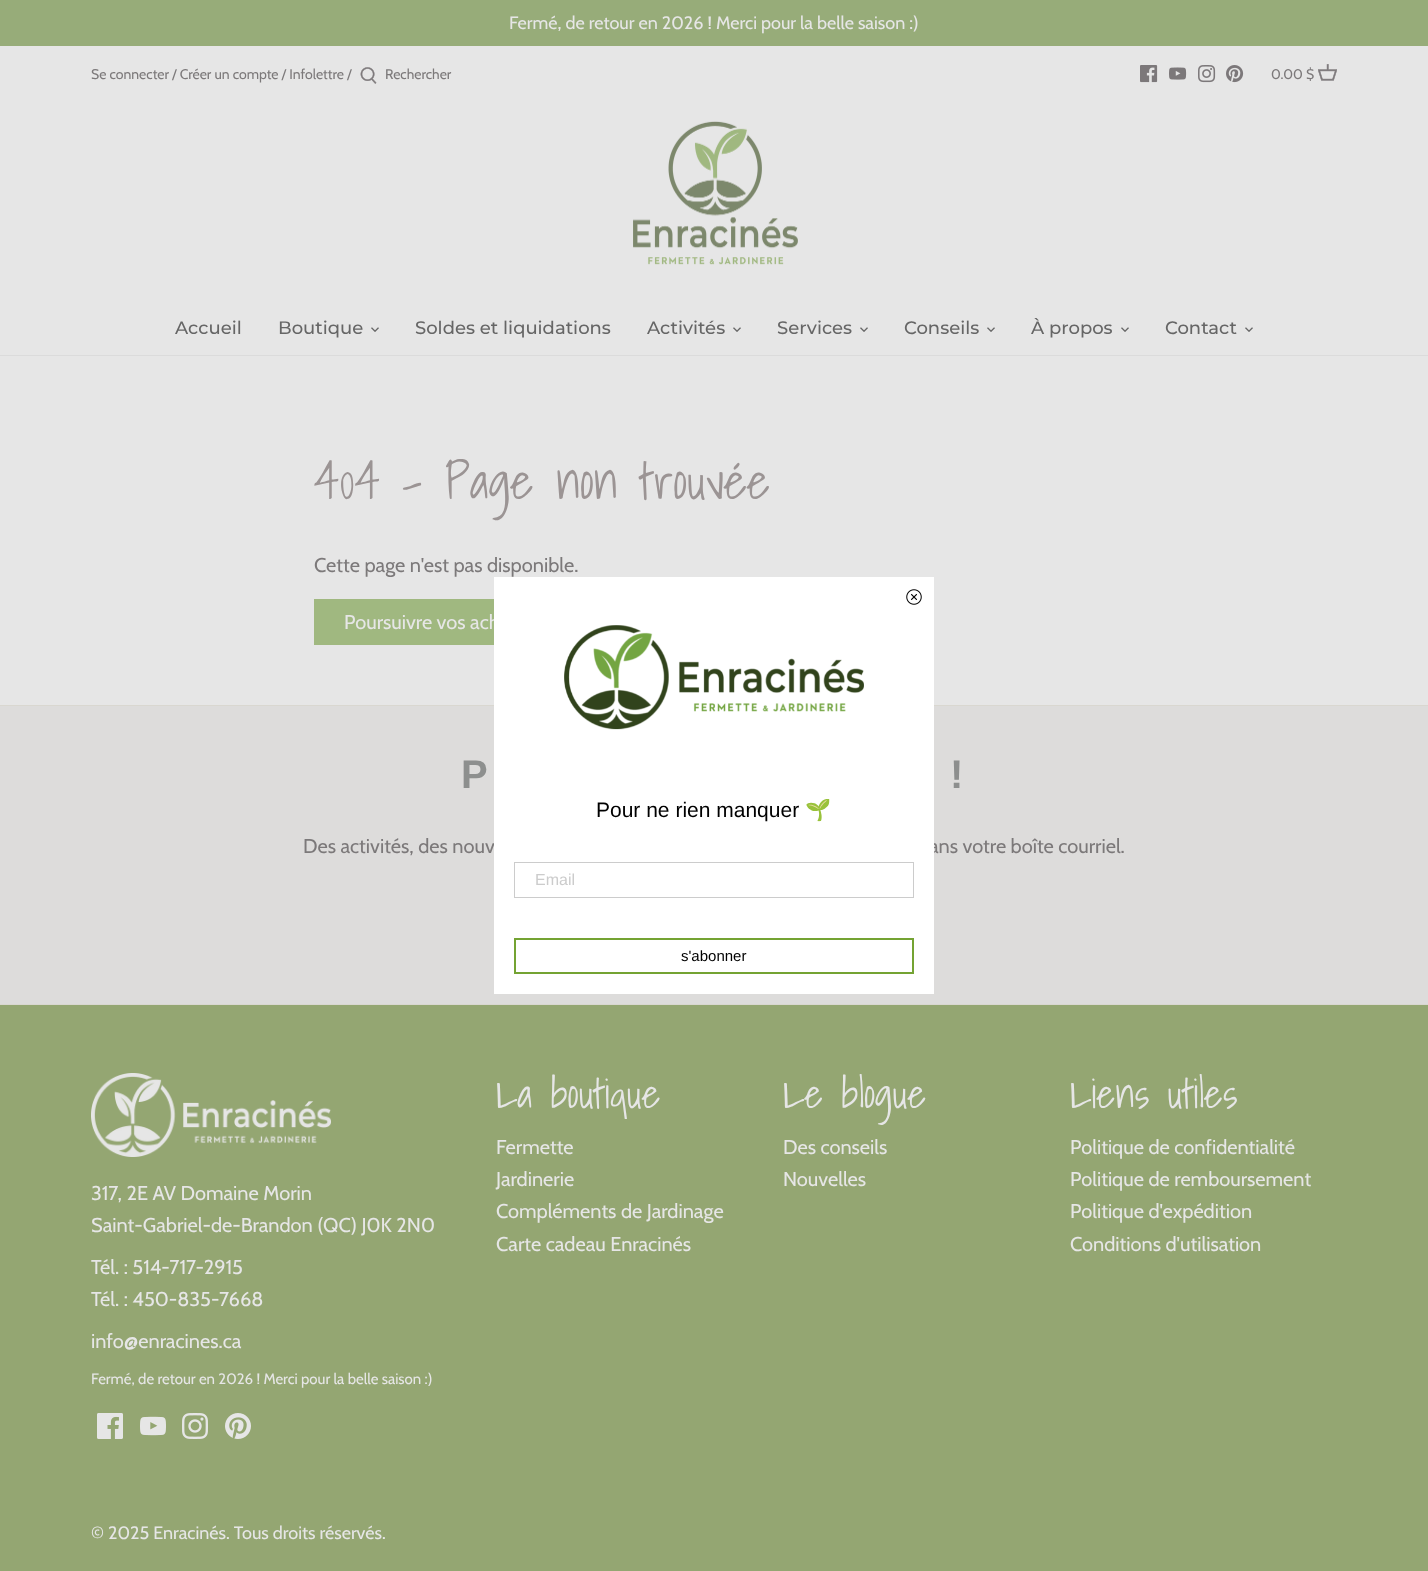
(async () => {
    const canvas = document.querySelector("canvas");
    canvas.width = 1428;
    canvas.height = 1571;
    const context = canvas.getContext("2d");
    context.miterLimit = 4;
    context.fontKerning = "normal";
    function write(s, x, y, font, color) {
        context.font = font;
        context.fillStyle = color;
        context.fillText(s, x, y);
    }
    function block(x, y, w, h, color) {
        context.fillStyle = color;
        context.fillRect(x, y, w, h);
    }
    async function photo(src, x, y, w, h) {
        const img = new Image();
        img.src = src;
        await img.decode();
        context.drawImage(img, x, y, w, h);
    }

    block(0, 0, 1428, 1571, "rgb(148, 166, 114)");
    block(0, 46, 1428, 659, "rgb(230, 230, 230)");
    block(0, 355, 1428, 1, "rgb(219, 219, 219)");
    block(0, 0, 1428, 46, "rgb(151, 172, 121)");
    write("Fermé, de retour en 2026 ! Merci pour la belle saison :)", 509, 29, "18px Cabin", "rgb(230, 230, 230)");
    write("Se connecter / Créer un compte / Infolettre /", 91, 79, "14px Cabin", "rgb(124, 121, 122)");
    await photo("media/1.png", 360, 67, 17, 17);
    write("Rechercher", 385, 79, "14px Cabin", "rgb(124, 121, 122)");
    await photo("media/2.png", 1140, 65, 18, 18);
    await photo("media/3.png", 1169, 67, 18, 13);
    await photo("media/4.png", 1198, 65, 18, 18);
    await photo("media/5.png", 1226, 65, 18, 18);
    write("0.00 $", 1271, 79, "14px Cabin", "rgb(124, 121, 122)");
    await photo("media/6.png", 1318, 64, 19, 17);
    await photo("media/7.png", 633, 121, 165, 144);
    write("Accueil", 175, 334, "100 18px Montserrat", "rgb(102, 102, 102)");
    write("Boutique", 278, 334, "100 18px Montserrat", "rgb(102, 102, 102)");
    await photo("media/8.png", 371, 327, 8, 5);
    write("Soldes et liquidations", 415, 334, "100 18px Montserrat", "rgb(102, 102, 102)");
    write("Activités", 647, 334, "100 18px Montserrat", "rgb(102, 102, 102)");
    await photo("media/8.png", 733, 327, 8, 5);
    write("Services", 777, 334, "100 18px Montserrat", "rgb(102, 102, 102)");
    await photo("media/8.png", 860, 327, 8, 5);
    write("Conseils", 904, 334, "100 18px Montserrat", "rgb(102, 102, 102)");
    await photo("media/8.png", 987, 327, 8, 5);
    write("À propos", 1031, 334, "100 18px Montserrat", "rgb(102, 102, 102)");
    await photo("media/8.png", 1121, 327, 8, 5);
    write("Contact", 1165, 334, "100 18px Montserrat", "rgb(102, 102, 102)");
    await photo("media/8.png", 1245, 327, 8, 5);
    write("404 - Page non trouvée", 314, 499, "50px Shadows Into Light", "rgb(155, 148, 148)");
    write("Cette page n'est pas disponible.", 314, 572, "20px Cabin", "rgb(124, 121, 122)");
    block(314, 599, 180, 46, "rgb(160, 184, 128)");
    write("Poursuivre vos ach", 344, 629, "20px Cabin", "rgb(230, 230, 230)");
    block(0, 706, 1428, 298, "rgb(221, 220, 219)");
    block(0, 705, 1428, 1, "rgb(217, 215, 208)");
    context.letterSpacing = "3px";
    write("P", 461, 788, "bold 40px Liberation Sans", "rgb(141, 143, 142)");
    write("!", 950, 788, "bold 40px Liberation Sans", "rgb(141, 143, 142)");
    context.letterSpacing = "0px";
    write("Des activités, des nouv", 303, 853, "20px Cabin", "rgb(124, 121, 122)");
    write("ans votre boîte courriel.", 929, 853, "20px Cabin", "rgb(124, 121, 122)");
    block(0, 1004, 1428, 1, "rgb(217, 215, 208)");
    write("La boutique", 496, 1108, "40px Shadows Into Light", "rgb(230, 230, 230)");
    write("Fermette", 496, 1154, "20px Cabin", "rgb(230, 230, 230)");
    write("Jardinerie", 496, 1186, "20px Cabin", "rgb(230, 230, 230)");
    write("Compléments de Jardinage", 496, 1218, "20px Cabin", "rgb(230, 230, 230)");
    write("Carte cadeau Enracinés", 496, 1251, "20px Cabin", "rgb(230, 230, 230)");
    write("Le blogue", 783, 1108, "40px Shadows Into Light", "rgb(230, 230, 230)");
    write("Des conseils", 783, 1154, "20px Cabin", "rgb(230, 230, 230)");
    write("Nouvelles", 783, 1186, "20px Cabin", "rgb(230, 230, 230)");
    write("Liens utiles", 1070, 1108, "40px Shadows Into Light", "rgb(230, 230, 230)");
    write("Politique de confidentialité", 1070, 1154, "20px Cabin", "rgb(230, 230, 230)");
    write("Politique de remboursement", 1070, 1186, "20px Cabin", "rgb(230, 230, 230)");
    write("Politique d'expédition", 1070, 1218, "20px Cabin", "rgb(230, 230, 230)");
    write("Conditions d'utilisation", 1070, 1251, "20px Cabin", "rgb(230, 230, 230)");
    await photo("media/9.png", 91, 1073, 240, 84);
    write("317, 2E AV Domaine Morin", 91, 1200, "20px Cabin", "rgb(230, 230, 230)");
    write("Saint-Gabriel-de-Brandon (QC) J0K 2N0", 91, 1232, "20px Cabin", "rgb(230, 230, 230)");
    write("Tél. : 514-717-2915", 91, 1274, "20px Cabin", "rgb(230, 230, 230)");
    write("Tél. : 450-835-7668", 91, 1306, "20px Cabin", "rgb(230, 230, 230)");
    write("info@enracines.ca", 91, 1348, "20px Cabin", "rgb(230, 230, 230)");
    write("Fermé, de retour en 2026 ! Merci pour la belle saison :)", 91, 1384, "15px Cabin", "rgb(230, 230, 230)");
    await photo("media/10.png", 97, 1413, 26, 26);
    await photo("media/11.png", 140, 1416, 26, 20);
    await photo("media/12.png", 182, 1413, 26, 26);
    await photo("media/13.png", 225, 1413, 26, 26);
    write("© 2025 Enracinés. Tous droits réservés.", 91, 1539, "18px Cabin", "rgb(230, 230, 230)");
    block(494, 577, 440, 417, "rgb(255, 255, 255)");
    await photo("media/14.png", 906, 589, 16, 16);
    await photo("media/15.png", 564, 625, 300, 105);
    write("Pour ne rien manquer", 596, 817, "21px Liberation Sans", "rgb(0, 0, 0)");
    write("🌱", 805, 817, "21px Noto Color Emoji", "rgb(0, 0, 0)");
    context.strokeStyle = "rgb(204, 204, 204)";
    context.strokeRect(514.5, 862.5, 399, 35);
    write("Email", 535, 885, "16px Liberation Sans", "rgb(204, 204, 204)");
    context.strokeStyle = "rgb(116, 163, 51)";
    context.lineWidth = 2;
    context.strokeRect(515, 939, 398, 34);
    write("s'abonner", 681, 961, "15px Liberation Sans", "rgb(0, 0, 0)");
})();
